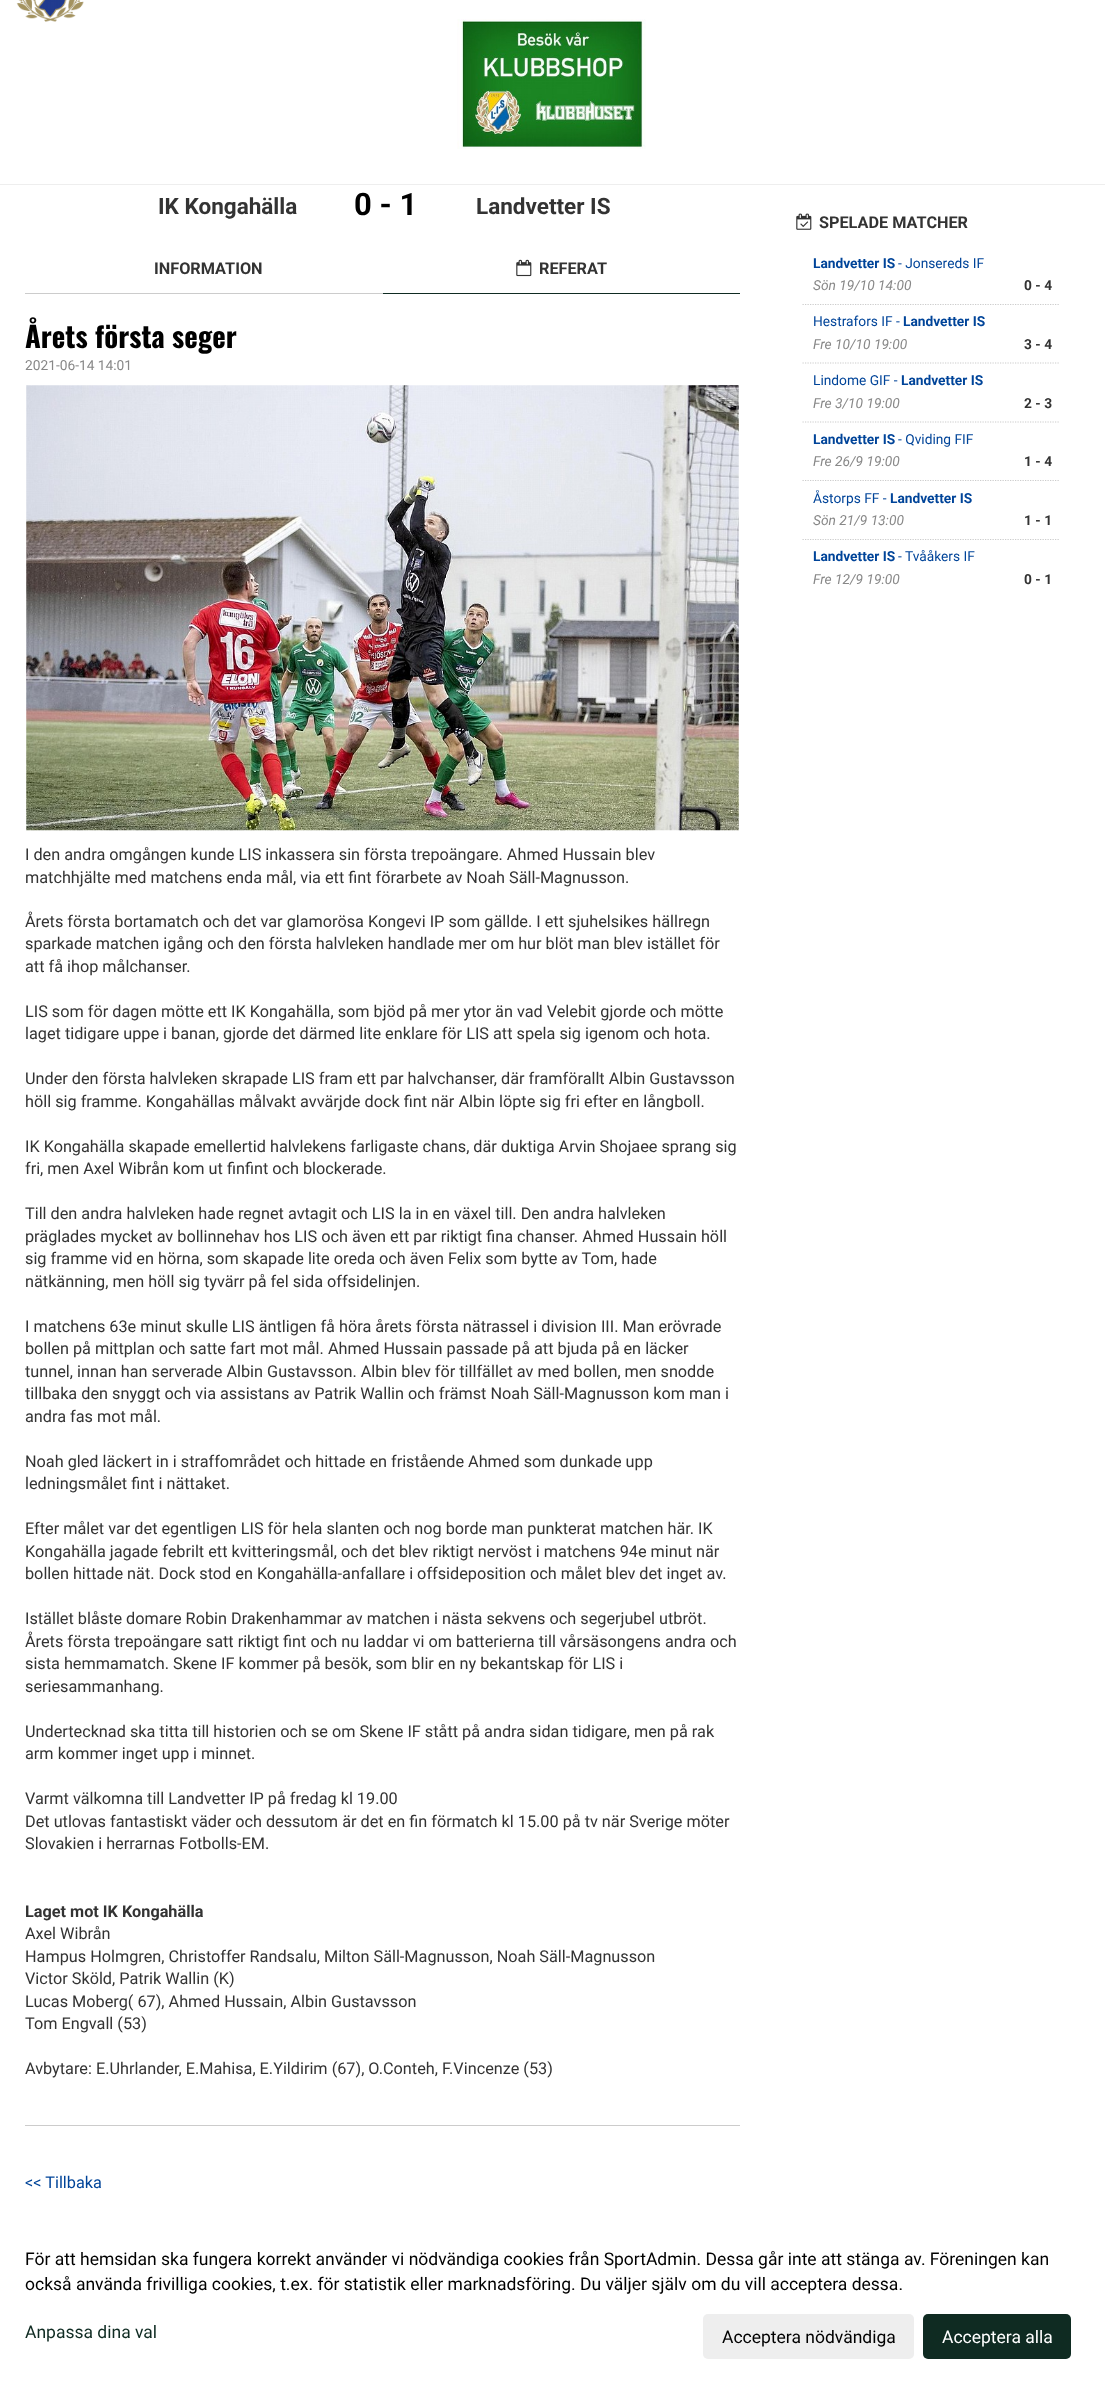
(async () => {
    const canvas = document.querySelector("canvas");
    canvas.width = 1105;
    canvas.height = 2383;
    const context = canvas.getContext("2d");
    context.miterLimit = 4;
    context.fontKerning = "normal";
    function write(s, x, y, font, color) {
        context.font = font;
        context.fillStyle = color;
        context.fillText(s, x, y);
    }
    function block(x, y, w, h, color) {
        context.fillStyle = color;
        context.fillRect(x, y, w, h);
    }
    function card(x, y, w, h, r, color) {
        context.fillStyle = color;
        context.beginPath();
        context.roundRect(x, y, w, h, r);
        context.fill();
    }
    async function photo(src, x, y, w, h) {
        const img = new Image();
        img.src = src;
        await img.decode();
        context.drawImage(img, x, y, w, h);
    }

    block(0, 0, 1105, 2383, "rgb(255, 255, 255)");
    await photo("media/1.png", 16, 0, 68, 22);
    await photo("media/2.png", 457, 19, 189, 130);
    block(0, 184, 1105, 1, "rgb(238, 238, 238)");
    write("IK Kongahälla", 158, 214, "bold 22.5px Roboto", "rgb(51, 51, 51)");
    write("0 - 1", 354, 215, "bold 31px Roboto", "rgb(0, 0, 0)");
    write("Landvetter IS", 476, 214, "bold 22.5px Roboto", "rgb(51, 51, 51)");
    block(25, 293, 358, 1, "rgb(204, 204, 204)");
    write("INFORMATION", 154, 274, "bold 16.25px Roboto", "rgb(51, 51, 51)");
    block(383, 293, 357, 1, "rgb(15, 43, 34)");
    await photo("media/3.png", 516, 259, 16, 18);
    write("REFERAT", 539, 274, "bold 16.25px Roboto", "rgb(51, 51, 51)");
    write("Årets första seger", 25, 348, "bold 28.75px Oswald", "rgb(0, 0, 0)");
    write("2021-06-14 14:01", 25, 370, "13.75px Roboto", "rgb(136, 136, 136)");
    await photo("media/4.png", 26, 385, 713, 446);
    write("I den andra omgången kunde LIS inkassera sin första trepoängare. Ahmed Hussain blev", 25, 860, "16.25px Roboto", "rgb(51, 51, 51)");
    write("matchhjälte med matchens enda mål, via ett fint förarbete av Noah Säll-Magnusson.", 25, 883, "16.25px Roboto", "rgb(51, 51, 51)");
    write("Årets första bortamatch och det var glamorösa Kongevi IP som gällde. I ett sjuhelsikes hällregn", 25, 927, "16.25px Roboto", "rgb(51, 51, 51)");
    write("sparkade matchen igång och den första halvleken handlade mer om hur blöt man blev istället för", 25, 949, "16.25px Roboto", "rgb(51, 51, 51)");
    write("att få ihop målchanser.", 25, 972, "16.25px Roboto", "rgb(51, 51, 51)");
    write("LIS som för dagen mötte ett IK Kongahälla, som bjöd på mer ytor än vad Velebit gjorde och mötte", 25, 1017, "16.25px Roboto", "rgb(51, 51, 51)");
    write("laget tidigare uppe i banan, gjorde det därmed lite enklare för LIS att spela sig igenom och hota.", 25, 1039, "16.25px Roboto", "rgb(51, 51, 51)");
    write("Under den första halvleken skrapade LIS fram ett par halvchanser, där framförallt Albin Gustavsson", 25, 1084, "16.25px Roboto", "rgb(51, 51, 51)");
    write("höll sig framme. Kongahällas målvakt avvärjde dock fint när Albin löpte sig fri efter en långboll.", 25, 1107, "16.25px Roboto", "rgb(51, 51, 51)");
    write("IK Kongahälla skapade emellertid halvlekens farligaste chans, där duktiga Arvin Shojaee sprang sig", 25, 1152, "16.25px Roboto", "rgb(51, 51, 51)");
    write("fri, men Axel Wibrån kom ut finfint och blockerade.", 25, 1174, "16.25px Roboto", "rgb(51, 51, 51)");
    write("Till den andra halvleken hade regnet avtagit och LIS la in en växel till. Den andra halvleken", 25, 1219, "16.25px Roboto", "rgb(51, 51, 51)");
    write("präglades mycket av bollinnehav hos LIS och även ett par riktigt fina chanser. Ahmed Hussain höll", 25, 1242, "16.25px Roboto", "rgb(51, 51, 51)");
    write("sig framme vid en hörna, som skapade lite oreda och även Felix som bytte av Tom, hade", 25, 1264, "16.25px Roboto", "rgb(51, 51, 51)");
    write("nätkänning, men höll sig tyvärr på fel sida offsidelinjen.", 25, 1287, "16.25px Roboto", "rgb(51, 51, 51)");
    write("I matchens 63e minut skulle LIS äntligen få höra årets första nätrassel i division III. Man erövrade", 25, 1332, "16.25px Roboto", "rgb(51, 51, 51)");
    write("bollen på mittplan och satte fart mot mål. Ahmed Hussain passade på att bjuda på en läcker", 25, 1354, "16.25px Roboto", "rgb(51, 51, 51)");
    write("tunnel, innan han serverade Albin Gustavsson. Albin blev för tillfället av med bollen, men snodde", 25, 1377, "16.25px Roboto", "rgb(51, 51, 51)");
    write("tillbaka den snyggt och via assistans av Patrik Wallin och främst Noah Säll-Magnusson kom man i", 25, 1399, "16.25px Roboto", "rgb(51, 51, 51)");
    write("andra fas mot mål.", 25, 1422, "16.25px Roboto", "rgb(51, 51, 51)");
    write("Noah gled läckert in i straffområdet och hittade en fristående Ahmed som dunkade upp", 25, 1467, "16.25px Roboto", "rgb(51, 51, 51)");
    write("ledningsmålet fint i nättaket.", 25, 1489, "16.25px Roboto", "rgb(51, 51, 51)");
    write("Efter målet var det egentligen LIS för hela slanten och nog borde man punkterat matchen här. IK", 25, 1534, "16.25px Roboto", "rgb(51, 51, 51)");
    write("Kongahälla jagade febrilt ett kvitteringsmål, och det blev riktigt nervöst i matchens 94e minut när", 25, 1557, "16.25px Roboto", "rgb(51, 51, 51)");
    write("bollen hittade nät. Dock stod en Kongahälla-anfallare i offsideposition och målet blev det inget av.", 25, 1579, "16.25px Roboto", "rgb(51, 51, 51)");
    write("Istället blåste domare Robin Drakenhammar av matchen i nästa sekvens och segerjubel utbröt.", 25, 1624, "16.25px Roboto", "rgb(51, 51, 51)");
    write("Årets första trepoängare satt riktigt fint och nu laddar vi om batterierna till vårsäsongens andra och", 25, 1647, "16.25px Roboto", "rgb(51, 51, 51)");
    write("sista hemmamatch. Skene IF kommer på besök, som blir en ny bekantskap för LIS i", 25, 1669, "16.25px Roboto", "rgb(51, 51, 51)");
    write("seriesammanhang.", 25, 1692, "16.25px Roboto", "rgb(51, 51, 51)");
    write("Undertecknad ska titta till historien och se om Skene IF stått på andra sidan tidigare, men på rak", 25, 1737, "16.25px Roboto", "rgb(51, 51, 51)");
    write("arm kommer inget upp i minnet.", 25, 1759, "16.25px Roboto", "rgb(51, 51, 51)");
    write("Varmt välkomna till Landvetter IP på fredag kl 19.00", 25, 1804, "16.25px Roboto", "rgb(51, 51, 51)");
    write("Det utlovas fantastiskt väder och dessutom är det en fin förmatch kl 15.00 på tv när Sverige möter", 25, 1827, "16.25px Roboto", "rgb(51, 51, 51)");
    write("Slovakien i herrarnas Fotbolls-EM.", 25, 1849, "16.25px Roboto", "rgb(51, 51, 51)");
    write("Laget mot IK Kongahälla", 25, 1917, "bold 16.25px Roboto", "rgb(51, 51, 51)");
    write("Axel Wibrån", 25, 1939, "16.25px Roboto", "rgb(51, 51, 51)");
    write("Hampus Holmgren, Christoffer Randsalu, Milton Säll-Magnusson, Noah Säll-Magnusson", 25, 1962, "16.25px Roboto", "rgb(51, 51, 51)");
    write("Victor Sköld, Patrik Wallin (K)", 25, 1984, "16.25px Roboto", "rgb(51, 51, 51)");
    write("Lucas Moberg( 67), Ahmed Hussain, Albin Gustavsson", 25, 2007, "16.25px Roboto", "rgb(51, 51, 51)");
    write("Tom Engvall (53)", 25, 2029, "16.25px Roboto", "rgb(51, 51, 51)");
    write("Avbytare: E.Uhrlander, E.Mahisa, E.Yildirim (67), O.Conteh, F.Vincenze (53)", 25, 2074, "16.25px Roboto", "rgb(51, 51, 51)");
    block(25, 2125, 715, 1, "rgb(204, 204, 204)");
    write("<< Tillbaka", 25, 2188, "16.25px Roboto", "rgb(0, 68, 153)");
    await photo("media/5.png", 796, 213, 16, 17);
    write("SPELADE MATCHER", 819, 228, "bold 16.25px Roboto", "rgb(51, 51, 51)");
    write("Landvetter IS", 813, 268, "bold 13.75px Roboto", "rgb(0, 68, 153)");
    write("- Jonsereds IF", 898, 268, "13.75px Roboto", "rgb(0, 68, 153)");
    context.beginPath();
    context.moveTo(802.5, 304.5);
    context.lineTo(1059, 304.5);
    context.strokeStyle = "rgb(204, 204, 204)";
    context.lineWidth = 1.2;
    context.setLineDash([1.25, 1.25]);
    context.stroke();
    write("Sön 19/10 14:00", 813, 290, "italic 13.75px Roboto", "rgb(136, 136, 136)");
    write("0 - 4", 1024, 290, "bold 13.75px Roboto", "rgb(51, 51, 51)");
    write("Hestrafors IF -", 813, 326, "13.75px Roboto", "rgb(0, 68, 153)");
    write("Landvetter IS", 903, 326, "bold 13.75px Roboto", "rgb(0, 68, 153)");
    context.beginPath();
    context.moveTo(802.5, 363);
    context.lineTo(1059, 363);
    context.stroke();
    write("Fre 10/10 19:00", 813, 349, "italic 13.75px Roboto", "rgb(136, 136, 136)");
    write("3 - 4", 1024, 349, "bold 13.75px Roboto", "rgb(51, 51, 51)");
    write("Lindome GIF -", 813, 385, "13.75px Roboto", "rgb(0, 68, 153)");
    write("Landvetter IS", 901, 385, "bold 13.75px Roboto", "rgb(0, 68, 153)");
    context.beginPath();
    context.moveTo(802.5, 422);
    context.lineTo(1059, 422);
    context.stroke();
    write("Fre 3/10 19:00", 813, 408, "italic 13.75px Roboto", "rgb(136, 136, 136)");
    write("2 - 3", 1024, 408, "bold 13.75px Roboto", "rgb(51, 51, 51)");
    write("Landvetter IS", 813, 444, "bold 13.75px Roboto", "rgb(0, 68, 153)");
    write("- Qviding FIF", 898, 444, "13.75px Roboto", "rgb(0, 68, 153)");
    context.beginPath();
    context.moveTo(802.5, 480.5);
    context.lineTo(1059, 480.5);
    context.stroke();
    write("Fre 26/9 19:00", 813, 466, "italic 13.75px Roboto", "rgb(136, 136, 136)");
    write("1 - 4", 1024, 466, "bold 13.75px Roboto", "rgb(51, 51, 51)");
    write("Åstorps FF -", 813, 503, "13.75px Roboto", "rgb(0, 68, 153)");
    write("Landvetter IS", 890, 503, "bold 13.75px Roboto", "rgb(0, 68, 153)");
    context.beginPath();
    context.moveTo(802.5, 539.5);
    context.lineTo(1059, 539.5);
    context.stroke();
    write("Sön 21/9 13:00", 813, 525, "italic 13.75px Roboto", "rgb(136, 136, 136)");
    write("1 - 1", 1024, 525, "bold 13.75px Roboto", "rgb(51, 51, 51)");
    write("Landvetter IS", 813, 561, "bold 13.75px Roboto", "rgb(0, 68, 153)");
    write("- Tvååkers IF", 898, 561, "13.75px Roboto", "rgb(0, 68, 153)");
    write("Fre 12/9 19:00", 813, 584, "italic 13.75px Roboto", "rgb(136, 136, 136)");
    write("0 - 1", 1024, 584, "bold 13.75px Roboto", "rgb(51, 51, 51)");
    write("För att hemsidan ska fungera korrekt använder vi nödvändiga cookies från SportAdmin. Dessa går inte att stänga av. Föreningen kan", 25, 2265, "17.5px Roboto", "rgb(0, 0, 0)");
    write("också använda frivilliga cookies, t.ex. för statistik eller marknadsföring. Du väljer själv om du vill acceptera dessa.", 25, 2290, "17.5px Roboto", "rgb(0, 0, 0)");
    write("Anpassa dina val", 25, 2338, "17.5px Roboto", "rgb(15, 43, 34)");
    card(703, 2314, 211, 45, 5, "rgb(238, 238, 238)");
    write("Acceptera nödvändiga", 722, 2343, "17.5px Roboto", "rgb(0, 0, 0)");
    card(923, 2314, 148, 45, 5, "rgb(15, 43, 34)");
    write("Acceptera alla", 942, 2343, "17.5px Roboto", "rgb(255, 255, 255)");
})();
